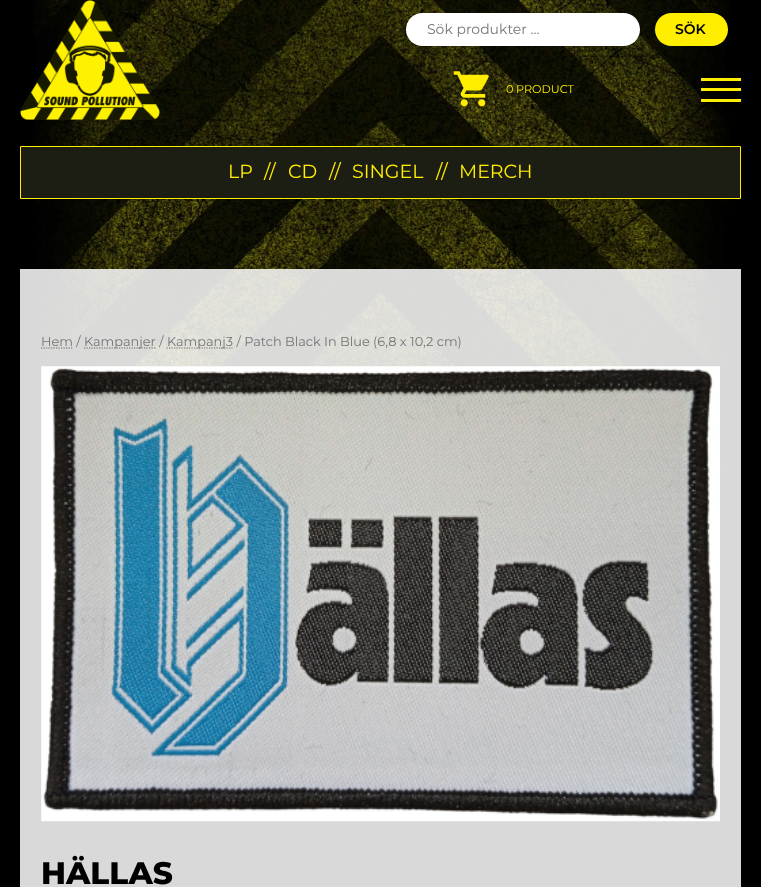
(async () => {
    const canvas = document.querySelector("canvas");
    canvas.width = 761;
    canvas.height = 887;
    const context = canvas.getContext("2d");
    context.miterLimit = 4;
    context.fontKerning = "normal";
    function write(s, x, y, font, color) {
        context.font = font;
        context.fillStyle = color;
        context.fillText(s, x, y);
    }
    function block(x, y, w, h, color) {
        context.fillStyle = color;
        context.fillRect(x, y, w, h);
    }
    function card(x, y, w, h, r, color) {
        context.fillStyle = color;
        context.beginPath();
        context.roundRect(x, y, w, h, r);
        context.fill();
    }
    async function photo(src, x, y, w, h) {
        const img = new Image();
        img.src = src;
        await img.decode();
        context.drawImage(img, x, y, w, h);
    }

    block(0, 0, 761, 887, "rgb(0, 0, 0)");
    await photo("media/1.png", 33, 0, 697, 518);
    await photo("media/2.png", 20, 0, 140, 120);
    card(406, 13, 234, 33, 16.5, "rgb(255, 255, 255)");
    write("Sök produkter …", 427, 34, "14px Montserrat", "rgb(117, 117, 117)");
    card(655, 13, 73, 33, 16.5, "rgb(255, 238, 0)");
    write("SÖK", 675, 34, "600 14px Montserrat", "rgb(0, 0, 0)");
    await photo("media/3.png", 453, 71, 36, 36);
    context.beginPath();
    context.moveTo(505.5, 94.5);
    context.lineTo(516, 94.5);
    context.strokeStyle = "rgba(28, 30, 19, 0.6)";
    context.lineWidth = 1.2;
    context.setLineDash([1.25, 1.25]);
    context.stroke();
    write("0", 506, 93, "11.25px Montserrat", "rgb(255, 238, 0)");
    context.beginPath();
    context.moveTo(516, 94.5);
    context.lineTo(573.5, 94.5);
    context.stroke();
    write("PRODUCT", 516, 93, "11.25px Montserrat", "rgb(255, 238, 0)");
    block(701, 78, 40, 3, "rgb(255, 238, 0)");
    block(701, 88, 40, 3, "rgb(255, 238, 0)");
    block(701, 99, 40, 3, "rgb(255, 238, 0)");
    context.fillStyle = "rgb(28, 30, 19)";
    context.beginPath();
    context.rect(20.5, 146.5, 720, 52);
    context.fill();
    context.strokeStyle = "rgb(255, 238, 0)";
    context.lineWidth = 1;
    context.setLineDash([]);
    context.stroke();
    write("LP", 228, 178, "19px Montserrat", "rgb(255, 238, 0)");
    write("//", 264, 178, "19px Montserrat", "rgb(255, 238, 0)");
    write("CD", 288, 178, "19px Montserrat", "rgb(255, 238, 0)");
    write("//", 329, 178, "19px Montserrat", "rgb(255, 238, 0)");
    write("SINGEL", 352, 178, "19px Montserrat", "rgb(255, 238, 0)");
    write("//", 436, 178, "19px Montserrat", "rgb(255, 238, 0)");
    write("MERCH", 459, 178, "19px Montserrat", "rgb(255, 238, 0)");
    block(20, 269, 721, 42, "rgba(255, 255, 255, 0.85)");
    block(20, 311, 721, 576, "rgba(255, 255, 255, 0.85)");
    context.beginPath();
    context.moveTo(41, 348);
    context.lineTo(73, 348);
    context.strokeStyle = "rgba(28, 30, 19, 0.6)";
    context.lineWidth = 1.2;
    context.setLineDash([1.25, 1.25]);
    context.stroke();
    write("Hem /", 41, 346, "12.9px Montserrat", "rgb(117, 117, 117)");
    context.beginPath();
    context.moveTo(84, 348);
    context.lineTo(155.5, 348);
    context.stroke();
    write("Kampanjer /", 84, 346, "12.9px Montserrat", "rgb(117, 117, 117)");
    context.beginPath();
    context.moveTo(166.5, 348);
    context.lineTo(232.5, 348);
    context.stroke();
    write("Kampanj3 / Patch Black In Blue (6,8 x 10,2 cm)", 167, 346, "12.9px Montserrat", "rgb(117, 117, 117)");
    await photo("media/4.png", 41, 366, 679, 456);
    write("HÄLLAS", 41, 884, "800 31px Montserrat", "rgb(0, 0, 0)");
})();
